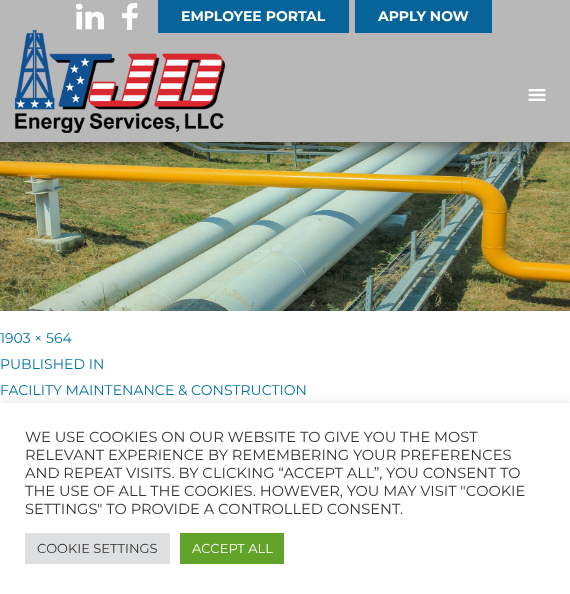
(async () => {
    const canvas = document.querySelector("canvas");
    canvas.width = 570;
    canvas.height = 594;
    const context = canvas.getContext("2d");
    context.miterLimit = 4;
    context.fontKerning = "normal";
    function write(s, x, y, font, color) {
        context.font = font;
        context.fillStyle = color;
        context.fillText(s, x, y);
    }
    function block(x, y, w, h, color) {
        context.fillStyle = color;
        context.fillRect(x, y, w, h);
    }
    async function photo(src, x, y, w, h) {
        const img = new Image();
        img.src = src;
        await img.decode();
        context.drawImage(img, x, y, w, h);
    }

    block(0, 0, 570, 594, "rgb(255, 255, 255)");
    await photo("media/5.png", 0, 142, 570, 169);
    context.fillStyle = "rgba(2, 2, 2, 0.75)";
    context.filter = "blur(9.5px)";
    context.beginPath();
    context.rect(0, 2, 570, 142);
    context.fill();
    context.filter = "none";
    block(0, 0, 570, 142, "rgb(185, 184, 184)");
    await photo("media/1.png", 76, 3, 28, 27);
    await photo("media/2.png", 122, 3, 16, 27);
    block(158, 0, 191, 33, "rgb(6, 100, 154)");
    write("EMPLOYEE PORTAL", 181, 21, "bold 14px Montserrat", "rgb(255, 255, 255)");
    block(355, 0, 137, 33, "rgb(6, 100, 154)");
    write("APPLY NOW", 378, 21, "bold 14px Montserrat", "rgb(255, 255, 255)");
    await photo("media/3.png", 528, 89, 18, 12);
    await photo("media/4.png", 15, 30, 210, 103);
    write("1903 × 564", 0, 343, "14px Montserrat", "rgb(0, 115, 168)");
    write("PUBLISHED IN", 0, 369, "14px Montserrat", "rgb(0, 115, 168)");
    write("FACILITY MAINTENANCE & CONSTRUCTION", 0, 395, "14px Montserrat", "rgb(0, 115, 168)");
    context.fillStyle = "rgba(172, 171, 171, 0.3)";
    context.filter = "blur(5px)";
    context.beginPath();
    context.rect(0, 402, 570, 191);
    context.fill();
    context.filter = "none";
    block(0, 403, 570, 191, "rgb(255, 255, 255)");
    write("WE USE COOKIES ON OUR WEBSITE TO GIVE YOU THE MOST", 25, 442, "14.65px Montserrat", "rgb(51, 51, 51)");
    write("RELEVANT EXPERIENCE BY REMEMBERING YOUR PREFERENCES", 25, 460, "14.65px Montserrat", "rgb(51, 51, 51)");
    write("AND REPEAT VISITS. BY CLICKING “ACCEPT ALL”, YOU CONSENT TO", 25, 478, "14.65px Montserrat", "rgb(51, 51, 51)");
    write("THE USE OF ALL THE COOKIES. HOWEVER, YOU MAY VISIT \"COOKIE", 25, 496, "14.65px Montserrat", "rgb(51, 51, 51)");
    write("SETTINGS\" TO PROVIDE A CONTROLLED CONSENT.", 25, 514, "14.65px Montserrat", "rgb(51, 51, 51)");
    block(25, 533, 145, 31, "rgb(222, 223, 224)");
    write("COOKIE SETTINGS", 37, 553, "13px Montserrat", "rgb(51, 51, 51)");
    block(180, 533, 104, 31, "rgb(97, 162, 41)");
    write("ACCEPT ALL", 192, 553, "13px Montserrat", "rgb(255, 255, 255)");
})();
